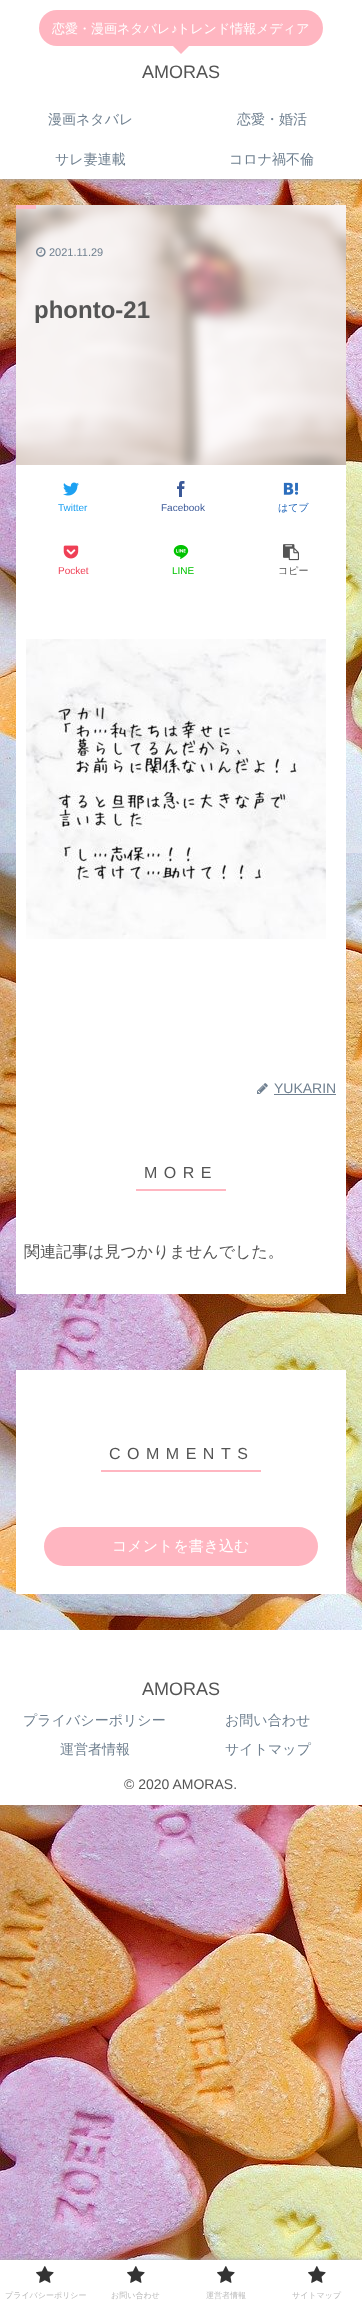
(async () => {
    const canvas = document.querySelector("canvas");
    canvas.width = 362;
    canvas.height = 2310;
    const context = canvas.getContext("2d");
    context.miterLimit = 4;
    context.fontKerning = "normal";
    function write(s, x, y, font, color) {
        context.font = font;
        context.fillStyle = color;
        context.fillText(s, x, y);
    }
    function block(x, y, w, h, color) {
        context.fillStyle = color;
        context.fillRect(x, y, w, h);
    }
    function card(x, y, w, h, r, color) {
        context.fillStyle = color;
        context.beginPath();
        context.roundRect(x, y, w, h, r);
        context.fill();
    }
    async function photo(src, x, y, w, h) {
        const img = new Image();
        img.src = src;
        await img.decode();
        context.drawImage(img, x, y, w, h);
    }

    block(0, 0, 362, 2310, "rgb(255, 255, 255)");
    await photo("media/1.png", 0, 179, 362, 2081);
    context.fillStyle = "rgb(169, 169, 169)";
    context.filter = "blur(2.5px)";
    context.beginPath();
    context.rect(0, 1, 362, 179);
    context.fill();
    context.filter = "none";
    block(0, 0, 362, 179, "rgb(255, 255, 255)");
    card(39, 10, 284, 36, 18, "rgb(255, 182, 193)");
    write("恋愛・漫画ネタバレ", 52, 33, "500 13px WenQuanYi Zen Hei", "rgb(255, 255, 255)");
    write("♪", 171, 33, "13px Liberation Sans", "rgb(255, 255, 255)");
    write("トレンド情報メディア", 177, 33, "500 13px WenQuanYi Zen Hei", "rgb(255, 255, 255)");
    context.fillStyle = "rgb(255, 182, 193)";
    context.beginPath();
    context.moveTo(166, 39);
    context.lineTo(196, 39);
    context.lineTo(181, 54);
    context.closePath();
    context.fill();
    write("AMORAS", 142, 78, "18px Liberation Sans", "rgb(84, 84, 84)");
    write("漫画ネタバレ", 48, 124, "500 14px WenQuanYi Zen Hei", "rgb(112, 128, 144)");
    write("恋愛・婚活", 237, 124, "500 14px WenQuanYi Zen Hei", "rgb(112, 128, 144)");
    write("サレ妻連載", 55, 164, "500 14px WenQuanYi Zen Hei", "rgb(112, 128, 144)");
    write("コロナ禍不倫", 229, 164, "500 14px WenQuanYi Zen Hei", "rgb(112, 128, 144)");
    block(16, 205, 330, 1089, "rgb(255, 255, 255)");
    await photo("media/2.png", 16, 205, 330, 260);
    block(16, 205, 20, 4, "rgba(255, 182, 193, 0.9)");
    await photo("media/3.png", 36, 247, 10, 10);
    write("2021.11.29", 49, 256, "11px Liberation Sans", "rgb(112, 128, 144)");
    write("phonto-21", 34, 318, "bold 24px Liberation Sans", "rgb(84, 84, 84)");
    await photo("media/4.png", 63, 482, 16, 14);
    write("Twitter", 58, 511, "10px Liberation Sans", "rgb(29, 161, 242)");
    await photo("media/5.png", 177, 481, 8, 16);
    write("Facebook", 161, 511, "10px Liberation Sans", "rgb(59, 89, 152)");
    await photo("media/6.png", 283, 482, 16, 13);
    write("はてブ", 278, 511, "500 10px WenQuanYi Zen Hei", "rgb(44, 110, 189)");
    await photo("media/7.png", 63, 545, 16, 14);
    write("Pocket", 58, 574, "10px Liberation Sans", "rgb(239, 64, 86)");
    await photo("media/8.png", 173, 545, 16, 14);
    write("LINE", 172, 574, "10px Liberation Sans", "rgb(0, 195, 0)");
    await photo("media/9.png", 283, 544, 16, 17);
    write("コピー", 278, 574, "500 10px WenQuanYi Zen Hei", "rgb(84, 84, 84)");
    await photo("media/10.png", 26, 639, 300, 300);
    await photo("media/11.png", 257, 1083, 11, 11);
    write("YUKARIN", 274, 1093, "14px Liberation Sans", "rgb(112, 128, 144)");
    block(274, 1094, 62, 1, "rgb(112, 128, 144)");
    context.letterSpacing = "6.5px";
    write("MORE", 144, 1178, "16px Liberation Sans", "rgb(84, 84, 84)");
    block(136, 1189, 90, 2, "rgb(255, 182, 193)");
    context.letterSpacing = "0px";
    write("関連記事は見つかりませんでした。", 24, 1257, "500 16px WenQuanYi Zen Hei", "rgb(84, 84, 84)");
    block(16, 1370, 330, 224, "rgb(255, 255, 255)");
    context.letterSpacing = "6.5px";
    write("COMMENTS", 109, 1459, "16px Liberation Sans", "rgb(84, 84, 84)");
    block(101, 1470, 160, 2, "rgb(255, 182, 193)");
    card(44, 1527, 274, 39, 19.5, "rgb(255, 182, 193)");
    context.letterSpacing = "0px";
    write("コメントを書き込む", 112, 1551, "500 15px WenQuanYi Zen Hei", "rgb(255, 255, 255)");
    block(0, 1630, 362, 175, "rgb(255, 255, 255)");
    write("AMORAS", 142, 1695, "18px Liberation Sans", "rgb(84, 84, 84)");
    write("プライバシーポリシー", 23, 1725, "500 14px WenQuanYi Zen Hei", "rgb(112, 128, 144)");
    write("お問い合わせ", 225, 1725, "500 14px WenQuanYi Zen Hei", "rgb(112, 128, 144)");
    write("運営者情報", 60, 1754, "500 14px WenQuanYi Zen Hei", "rgb(112, 128, 144)");
    write("サイトマップ", 225, 1754, "500 14px WenQuanYi Zen Hei", "rgb(112, 128, 144)");
    write("© 2020 AMORAS.", 124, 1789, "14px Liberation Sans", "rgb(84, 84, 84)");
    context.fillStyle = "rgb(169, 169, 169)";
    context.filter = "blur(2.5px)";
    context.beginPath();
    context.rect(0, 2260, 362, 50);
    context.fill();
    context.filter = "none";
    block(0, 2260, 362, 50, "rgb(255, 255, 255)");
    await photo("media/12.png", 36, 2266, 18, 17);
    write("プライバシーポリシー", 5, 2298, "500 8px WenQuanYi Zen Hei", "rgb(187, 187, 187)");
    await photo("media/12.png", 127, 2266, 18, 17);
    write("お問い合わせ", 111, 2298, "500 8px WenQuanYi Zen Hei", "rgb(187, 187, 187)");
    await photo("media/12.png", 217, 2266, 18, 17);
    write("運営者情報", 206, 2298, "500 8px WenQuanYi Zen Hei", "rgb(187, 187, 187)");
    await photo("media/12.png", 308, 2266, 18, 17);
    write("サイトマップ", 292, 2298, "500 8px WenQuanYi Zen Hei", "rgb(187, 187, 187)");
})();
